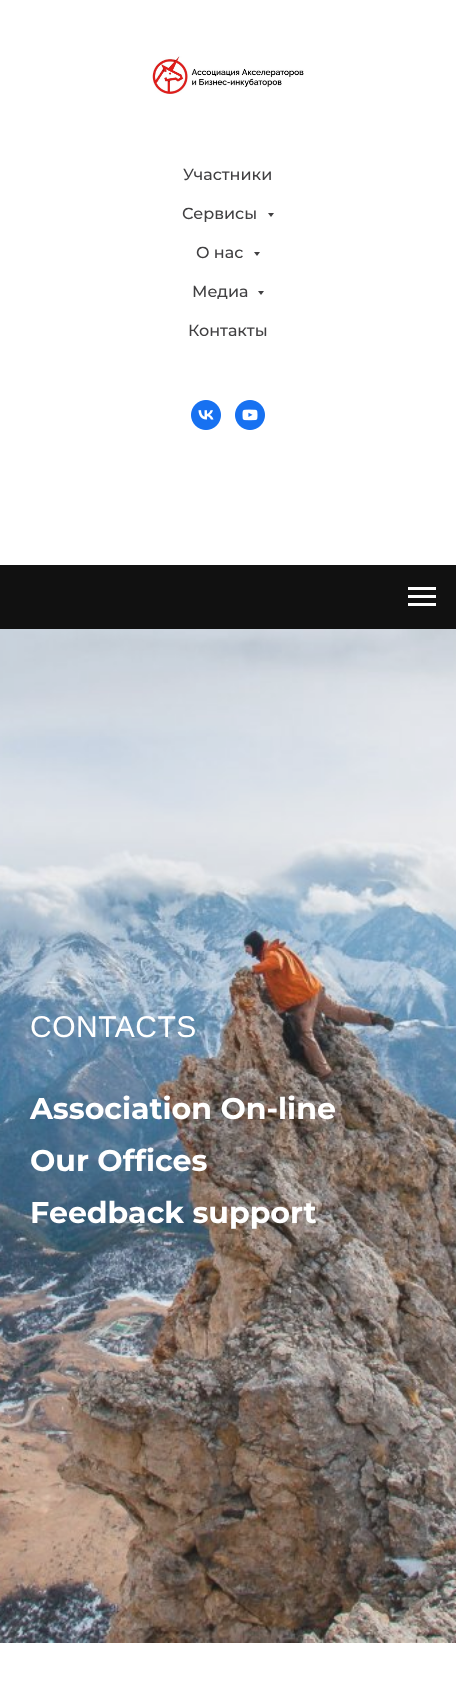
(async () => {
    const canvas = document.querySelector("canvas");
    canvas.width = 456;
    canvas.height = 1690;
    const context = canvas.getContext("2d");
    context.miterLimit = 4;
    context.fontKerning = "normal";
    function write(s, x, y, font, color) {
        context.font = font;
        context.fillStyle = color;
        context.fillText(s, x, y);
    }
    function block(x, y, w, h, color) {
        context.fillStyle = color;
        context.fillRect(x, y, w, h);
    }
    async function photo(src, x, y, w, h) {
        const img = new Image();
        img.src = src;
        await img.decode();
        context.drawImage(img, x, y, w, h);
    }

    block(0, 0, 456, 1690, "rgb(255, 255, 255)");
    await photo("media/1.png", 152, 56, 152, 38);
    write("Участники", 183, 180, "500 16px Montserrat", "rgb(65, 64, 66)");
    write("Сервисы", 182, 219, "500 16px Montserrat", "rgb(65, 64, 66)");
    context.beginPath();
    context.moveTo(268, 213);
    context.lineTo(274, 213);
    context.lineTo(271, 217);
    context.closePath();
    context.moveTo(254, 252);
    context.lineTo(260, 252);
    context.lineTo(257, 256);
    context.closePath();
    context.fill();
    write("О нас", 196, 258, "500 16px Montserrat", "rgb(65, 64, 66)");
    write("Медиа", 192, 297, "500 16px Montserrat", "rgb(65, 64, 66)");
    context.beginPath();
    context.moveTo(258, 291);
    context.lineTo(264, 291);
    context.lineTo(261, 295);
    context.closePath();
    context.fill();
    write("Контакты", 188, 336, "500 16px Montserrat", "rgb(65, 64, 66)");
    await photo("media/2.png", 191, 400, 30, 30);
    await photo("media/3.png", 235, 400, 30, 30);
    block(0, 565, 456, 64, "rgb(17, 17, 17)");
    block(408, 587, 28, 3, "rgb(255, 255, 255)");
    block(408, 595, 28, 3, "rgb(255, 255, 255)");
    block(408, 603, 28, 3, "rgb(255, 255, 255)");
    await photo("media/4.png", 0, 629, 456, 1014);
    context.letterSpacing = "0.5px";
    write("CONTACTS", 30, 1037, "30px Liberation Sans", "rgb(255, 255, 255)");
    context.letterSpacing = "0px";
    write("Association On-line", 30, 1119, "bold 30px Montserrat", "rgb(255, 255, 255)");
    write("Our Offices", 30, 1171, "bold 30px Montserrat", "rgb(255, 255, 255)");
    write("F", 30, 1223, "bold 30px Montserrat", "rgb(255, 255, 255)");
    write("eedback support", 49, 1223, "bold 30px Montserrat", "rgb(255, 255, 255)");
})();
